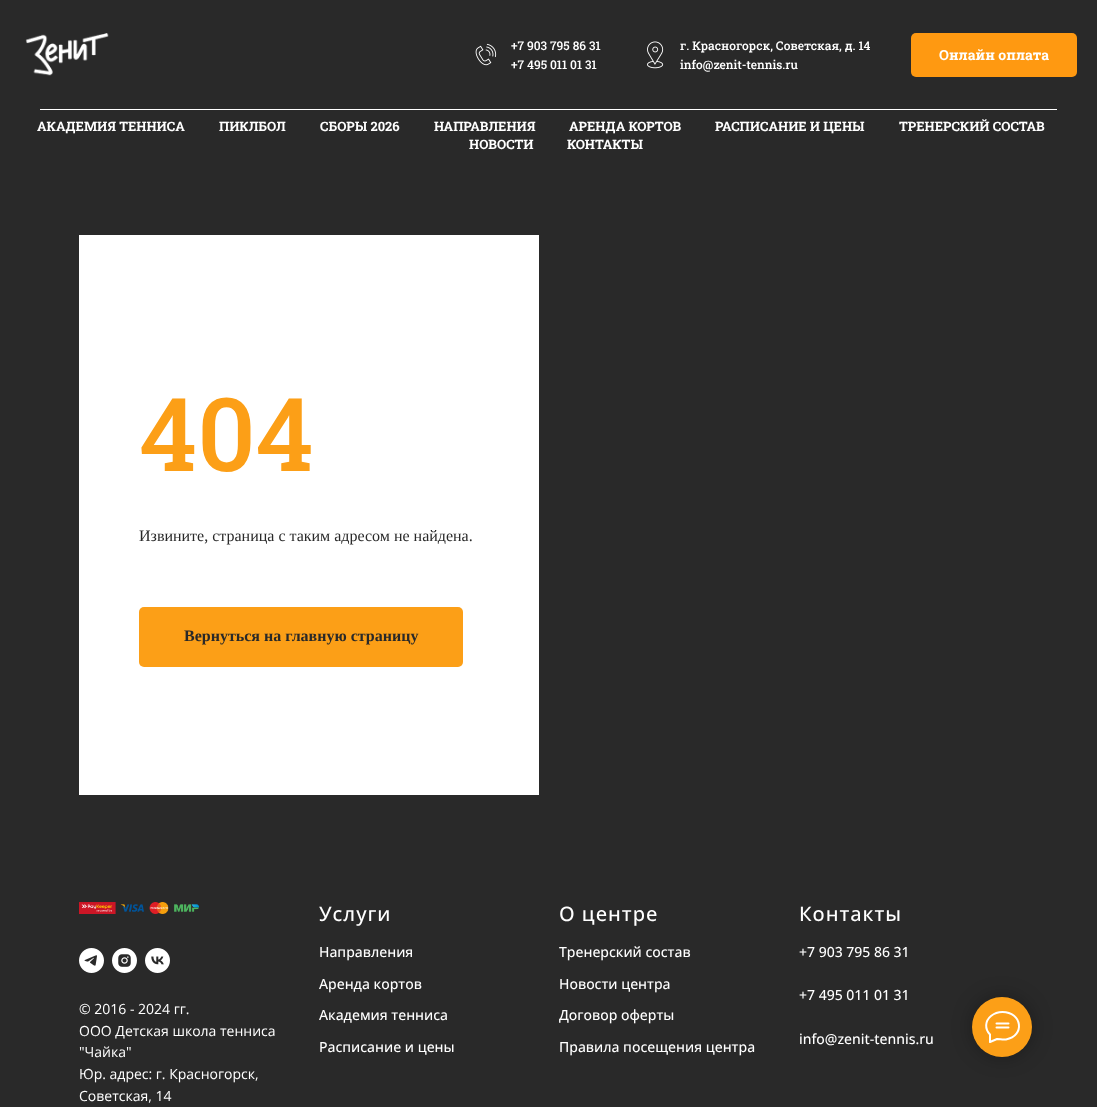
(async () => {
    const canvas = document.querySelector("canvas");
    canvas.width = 1097;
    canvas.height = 1107;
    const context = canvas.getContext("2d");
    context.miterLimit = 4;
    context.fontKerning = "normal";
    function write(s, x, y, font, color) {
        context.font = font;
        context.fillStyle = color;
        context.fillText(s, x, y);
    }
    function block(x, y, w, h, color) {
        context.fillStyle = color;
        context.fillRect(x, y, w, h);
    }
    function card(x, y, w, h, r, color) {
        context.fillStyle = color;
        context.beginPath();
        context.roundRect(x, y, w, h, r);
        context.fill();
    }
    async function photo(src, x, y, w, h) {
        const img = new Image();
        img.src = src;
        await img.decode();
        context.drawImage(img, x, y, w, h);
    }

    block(0, 0, 1097, 1107, "rgb(41, 41, 41)");
    await photo("media/1.png", 25, 33, 84, 43);
    await photo("media/2.png", 475, 43, 22, 23);
    write("+7 903 795 86 31", 511, 50, "500 12px Roboto Slab", "rgb(255, 255, 255)");
    write("+7 495 011 01 31", 511, 69, "500 12px Roboto Slab", "rgb(255, 255, 255)");
    await photo("media/3.png", 647, 41, 17, 28);
    write("г. Красногорск, Советская, д. 14", 680, 50, "500 12px Roboto Slab", "rgb(255, 255, 255)");
    write("info@zenit-tennis.ru", 680, 69, "500 12px Roboto Slab", "rgb(255, 255, 255)");
    card(911, 33, 166, 44, 5, "rgb(255, 153, 17)");
    write("Онлайн оплата", 939, 60, "bold 14px Roboto Slab", "rgb(255, 255, 255)");
    block(40, 109, 1017, 1, "rgb(255, 255, 255)");
    write("АКАДЕМИЯ ТЕННИСА", 37, 131, "bold 13px Roboto Slab", "rgb(255, 255, 255)");
    write("ПИКЛБОЛ", 219, 131, "bold 13px Roboto Slab", "rgb(255, 255, 255)");
    write("СБОРЫ 2026", 320, 131, "bold 13px Roboto Slab", "rgb(255, 255, 255)");
    write("НАПРАВЛЕНИЯ", 434, 131, "bold 13px Roboto Slab", "rgb(255, 255, 255)");
    write("АРЕНДА КОРТОВ", 569, 131, "bold 13px Roboto Slab", "rgb(255, 255, 255)");
    write("РАСПИСАНИЕ И ЦЕНЫ", 715, 131, "bold 13px Roboto Slab", "rgb(255, 255, 255)");
    write("ТРЕНЕРСКИЙ СОСТАВ", 899, 131, "bold 13px Roboto Slab", "rgb(255, 255, 255)");
    write("НОВОСТИ", 469, 149, "bold 13px Roboto Slab", "rgb(255, 255, 255)");
    write("КОНТАКТЫ", 567, 149, "bold 13px Roboto Slab", "rgb(255, 255, 255)");
    context.fillStyle = "rgba(0, 0, 0, 0.3)";
    context.filter = "blur(10px)";
    context.beginPath();
    context.roundRect(972, 997, 60, 60, 30);
    context.fill();
    context.filter = "none";
    context.fillStyle = "rgb(252, 159, 23)";
    context.beginPath();
    context.arc(1002, 1027, 30, 0, Math.PI * 2);
    context.fill();
    context.beginPath();
    context.moveTo(996.5, 1023.5);
    context.lineTo(1008.5, 1023.5);
    context.moveTo(996.5, 1027.5);
    context.lineTo(1008.5, 1027.5);
    context.moveTo(990, 1034.5);
    context.bezierCurveTo(984.5, 1029, 985, 1021, 991, 1016);
    context.bezierCurveTo(994, 1013.5, 998.5, 1012, 1002.5, 1012);
    context.bezierCurveTo(1022, 1012, 1025.5, 1036, 1006, 1039.5);
    context.bezierCurveTo(1002, 1040, 1000.5, 1039, 997, 1039);
    context.lineTo(990, 1042);
    context.lineTo(990, 1035);
    context.closePath();
    context.strokeStyle = "rgb(255, 255, 255)";
    context.lineWidth = 2;
    context.lineCap = "round";
    context.lineJoin = "round";
    context.stroke();
    block(79, 235, 460, 560, "rgb(255, 255, 255)");
    write("404", 139, 471, "500 102px Roboto Slab", "rgb(252, 159, 23)");
    write("Извините, страница с таким адресом не найдена.", 139, 541, "16px Liberation Serif", "rgb(41, 41, 41)");
    card(139, 607, 324, 60, 5, "rgb(252, 159, 23)");
    write("Вернуться на главную страницу", 184, 641, "bold 16px Liberation Serif", "rgb(41, 41, 41)");
    await photo("media/4.png", 79, 902, 120, 12);
    await photo("media/5.png", 79, 948, 25, 25);
    await photo("media/6.png", 112, 948, 25, 25);
    await photo("media/7.png", 145, 948, 25, 25);
    write("© 2016 - 2024 гг.", 79, 1014, "14px Open Sans", "rgb(255, 255, 255)");
    write("ООО Детская школа тенниса", 79, 1036, "14px Open Sans", "rgb(255, 255, 255)");
    write("\"Чайка\"", 79, 1057, "14px Open Sans", "rgb(255, 255, 255)");
    write("Юр. адрес: г. Красногорск,", 79, 1079, "14px Open Sans", "rgb(255, 255, 255)");
    write("Советская, 14", 79, 1101, "14px Open Sans", "rgb(255, 255, 255)");
    context.letterSpacing = "1px";
    write("Услуги", 319, 921, "500 20px Open Sans", "rgb(255, 255, 255)");
    context.letterSpacing = "0px";
    write("Направления", 319, 957, "500 14px Open Sans", "rgb(255, 255, 255)");
    write("Аренда кортов", 319, 989, "500 14px Open Sans", "rgb(255, 255, 255)");
    write("Академия тенниса", 319, 1020, "500 14px Open Sans", "rgb(255, 255, 255)");
    write("Расписание и цены", 319, 1052, "500 14px Open Sans", "rgb(255, 255, 255)");
    context.letterSpacing = "1px";
    write("О центре", 559, 921, "500 20px Open Sans", "rgb(255, 255, 255)");
    context.letterSpacing = "0px";
    write("Тренерский состав", 559, 957, "500 14px Open Sans", "rgb(255, 255, 255)");
    write("Новости центра", 559, 989, "500 14px Open Sans", "rgb(255, 255, 255)");
    write("Договор оферты", 559, 1020, "500 14px Open Sans", "rgb(255, 255, 255)");
    write("Правила посещения центра", 559, 1052, "500 14px Open Sans", "rgb(255, 255, 255)");
    context.letterSpacing = "1px";
    write("Контакты", 799, 921, "500 20px Open Sans", "rgb(255, 255, 255)");
    context.letterSpacing = "0px";
    write("+7 903 795 86 31", 799, 957, "500 14px Open Sans", "rgb(255, 255, 255)");
    write("+7 495 011 01 31", 799, 1000, "500 14px Open Sans", "rgb(255, 255, 255)");
    write("info@zenit-tennis.ru", 799, 1044, "500 14px Open Sans", "rgb(255, 255, 255)");
})();
